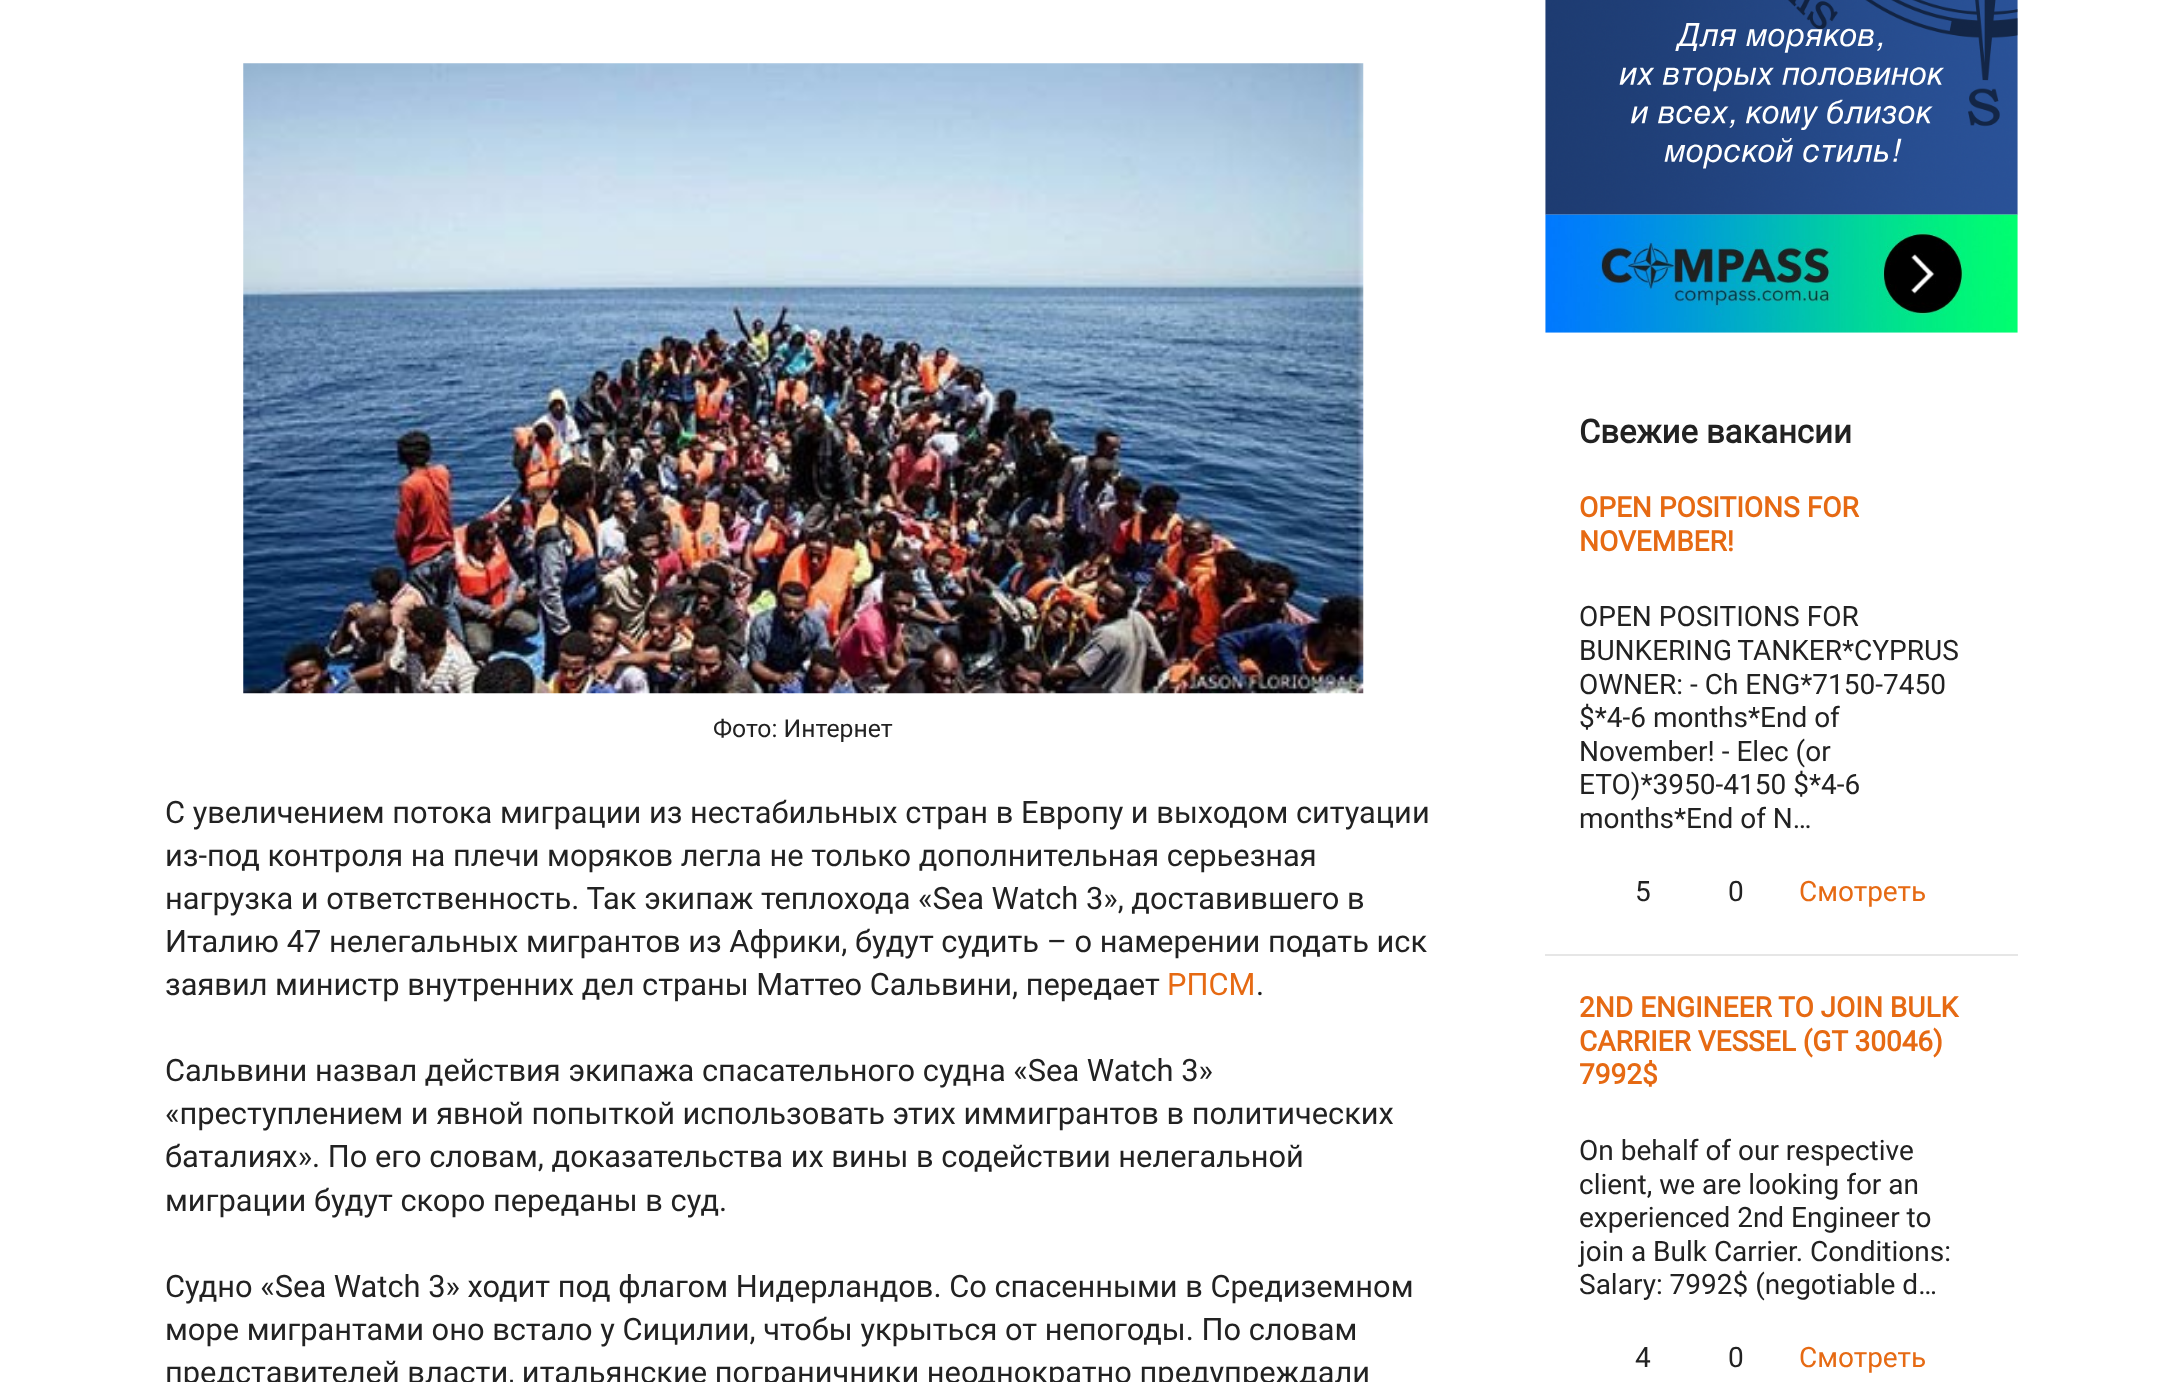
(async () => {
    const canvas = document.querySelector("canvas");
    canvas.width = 2181;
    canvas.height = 1382;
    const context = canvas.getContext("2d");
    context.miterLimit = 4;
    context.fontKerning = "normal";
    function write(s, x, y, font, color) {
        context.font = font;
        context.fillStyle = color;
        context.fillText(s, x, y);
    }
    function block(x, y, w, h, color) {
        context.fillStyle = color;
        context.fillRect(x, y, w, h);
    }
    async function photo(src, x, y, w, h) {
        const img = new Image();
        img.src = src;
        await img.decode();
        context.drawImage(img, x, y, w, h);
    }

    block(0, 0, 2181, 1382, "rgb(255, 255, 255)");
    await photo("media/1.png", 243, 63, 1121, 631);
    write("Фото: Интернет", 713, 737, "24.75px Roboto", "rgb(34, 34, 34)");
    write("С увеличением потока миграции из нестабильных стран в Европу и выходом ситуации", 165, 823, "30.8px Roboto", "rgb(34, 34, 34)");
    write("из-под контроля на плечи моряков легла не только дополнительная серьезная", 165, 866, "30.8px Roboto", "rgb(34, 34, 34)");
    write("нагрузка и ответственность. Так экипаж теплохода «Sea Watch 3», доставившего в", 165, 909, "30.8px Roboto", "rgb(34, 34, 34)");
    write("Италию 47 нелегальных мигрантов из Африки, будут судить – о намерении подать иск", 165, 952, "30.8px Roboto", "rgb(34, 34, 34)");
    write("заявил министр внутренних дел страны Маттео Сальвини, передает", 165, 995, "30.8px Roboto", "rgb(34, 34, 34)");
    write("РПСМ", 1167, 995, "30.8px Roboto", "rgb(230, 106, 19)");
    write(".", 1256, 995, "30.8px Roboto", "rgb(34, 34, 34)");
    write("Сальвини назвал действия экипажа спасательного судна «Sea Watch 3»", 165, 1081, "30.8px Roboto", "rgb(34, 34, 34)");
    write("«преступлением и явной попыткой использовать этих иммигрантов в политических", 165, 1124, "30.8px Roboto", "rgb(34, 34, 34)");
    write("баталиях». По его словам, доказательства их вины в содействии нелегальной", 165, 1167, "30.8px Roboto", "rgb(34, 34, 34)");
    write("миграции будут скоро переданы в суд.", 165, 1211, "30.8px Roboto", "rgb(34, 34, 34)");
    write("Судно «Sea Watch 3» ходит под флагом Нидерландов. Со спасенными в Средиземном", 165, 1297, "30.8px Roboto", "rgb(34, 34, 34)");
    write("море мигрантами оно встало у Сицилии, чтобы укрыться от непогоды. По словам", 165, 1340, "30.8px Roboto", "rgb(34, 34, 34)");
    write("представителей власти, итальянские пограничники неоднократно предупреждали", 165, 1383, "30.8px Roboto", "rgb(34, 34, 34)");
    await photo("media/2.png", 1545, 0, 473, 333);
    write("Свежие вакансии", 1579, 443, "bold 32.75px Roboto", "rgb(34, 34, 34)");
    block(1545, 954, 473, 2, "rgb(230, 230, 230)");
    write("OPEN POSITIONS FOR", 1579, 517, "bold 28px Roboto", "rgb(230, 106, 19)");
    write("NOVEMBER!", 1579, 551, "bold 28px Roboto", "rgb(230, 106, 19)");
    write("OPEN POSITIONS FOR", 1579, 626, "28px Roboto", "rgb(34, 34, 34)");
    context.wordSpacing = "-1px";
    write("BUNKERING TANKER*CYPRUS", 1579, 660, "28px Roboto", "rgb(34, 34, 34)");
    context.wordSpacing = "0px";
    write("OWNER: - Ch ENG*7150-7450", 1579, 694, "28px Roboto", "rgb(34, 34, 34)");
    write("$*4-6 months*End of", 1579, 727, "28px Roboto", "rgb(34, 34, 34)");
    write("November! - Elec (or", 1579, 761, "28px Roboto", "rgb(34, 34, 34)");
    write("ETO)*3950-4150 $*4-6", 1579, 794, "28px Roboto", "rgb(34, 34, 34)");
    write("months*End of N…", 1579, 828, "28px Roboto", "rgb(34, 34, 34)");
    write("5", 1635, 901, "28px Roboto", "rgb(34, 34, 34)");
    write("0", 1728, 901, "28px Roboto", "rgb(34, 34, 34)");
    write("Смотреть", 1799, 901, "28px Roboto", "rgb(230, 106, 19)");
    write("2ND ENGINEER TO JOIN BULK", 1579, 1017, "bold 28px Roboto", "rgb(230, 106, 19)");
    write("CARRIER VESSEL (GT 30046)", 1579, 1051, "bold 28px Roboto", "rgb(230, 106, 19)");
    write("7992$", 1579, 1084, "bold 28px Roboto", "rgb(230, 106, 19)");
    write("On behalf of our respective", 1579, 1160, "28px Roboto", "rgb(34, 34, 34)");
    write("client, we are looking for an", 1579, 1194, "28px Roboto", "rgb(34, 34, 34)");
    write("experienced 2nd Engineer to", 1579, 1227, "28px Roboto", "rgb(34, 34, 34)");
    write("join a Bulk Carrier. Conditions:", 1579, 1261, "28px Roboto", "rgb(34, 34, 34)");
    write("Salary: 7992$ (negotiable d…", 1579, 1294, "28px Roboto", "rgb(34, 34, 34)");
    write("4", 1635, 1367, "28px Roboto", "rgb(34, 34, 34)");
    write("0", 1728, 1367, "28px Roboto", "rgb(34, 34, 34)");
    write("Смотреть", 1799, 1367, "28px Roboto", "rgb(230, 106, 19)");
})();
